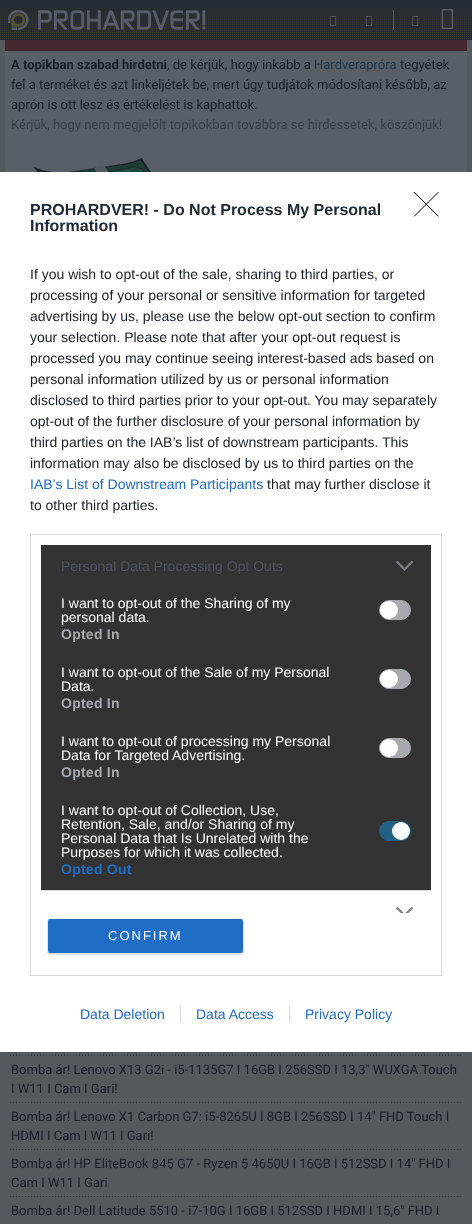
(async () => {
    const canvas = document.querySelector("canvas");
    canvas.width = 472;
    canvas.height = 1224;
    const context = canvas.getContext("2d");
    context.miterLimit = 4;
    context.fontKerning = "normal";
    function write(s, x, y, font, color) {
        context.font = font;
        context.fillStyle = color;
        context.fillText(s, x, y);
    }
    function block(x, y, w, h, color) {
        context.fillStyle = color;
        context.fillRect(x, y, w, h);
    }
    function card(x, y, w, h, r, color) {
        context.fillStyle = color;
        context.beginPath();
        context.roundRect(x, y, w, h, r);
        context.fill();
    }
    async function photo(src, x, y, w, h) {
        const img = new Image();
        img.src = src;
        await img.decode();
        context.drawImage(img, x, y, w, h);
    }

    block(0, 0, 472, 1224, "rgb(84, 89, 94)");
    await photo("media/1.png", 0, 0, 472, 40);
    await photo("media/2.png", 8, 10, 198, 20);
    await photo("media/3.png", 330, 16, 7, 10);
    await photo("media/4.png", 366, 16, 7, 10);
    block(393, 10, 1, 20, "rgb(89, 95, 103)");
    await photo("media/5.png", 412, 16, 7, 10);
    await photo("media/6.png", 441, 9, 13, 20);
    block(5, 40, 462, 10, "rgb(70, 39, 48)");
    block(5, 50, 462, 1, "rgb(64, 38, 47)");
    block(5, 51, 462, 121, "rgb(89, 95, 103)");
    write("A topikban szabad hirdetni", 11, 69, "bold 13px Roboto", "rgb(25, 31, 39)");
    write(", de kérjük, hogy inkább a", 167, 69, "13px Roboto", "rgb(25, 31, 39)");
    write("Hardverapróra", 314, 69, "13px Roboto", "rgb(34, 55, 72)");
    write("tegyétek", 400, 69, "13px Roboto", "rgb(25, 31, 39)");
    write("fel a terméket és azt linkeljétek be, mert úgy tudjátok módosítani később, az", 11, 89, "13px Roboto", "rgb(25, 31, 39)");
    write("aprón is ott lesz és értékelést is kaphattok.", 11, 109, "13px Roboto", "rgb(25, 31, 39)");
    write("Kérjük, hogy nem megjelölt topikokban továbbra se hirdessetek, köszönjük!", 11, 129, "13px Roboto", "rgb(57, 63, 71)");
    await photo("media/7.png", 33, 157, 118, 15);
    await photo("media/8.png", 10, 1055, 451, 1);
    write("Bomba ár! Lenovo X13 G2i - i5-1135G7 I 16GB I 256SSD I 13,3\" WUXGA Touch", 11, 1074, "13px Roboto", "rgb(25, 31, 39)");
    write("I W11 I Cam I Gari!", 11, 1093, "13px Roboto", "rgb(25, 31, 39)");
    await photo("media/8.png", 10, 1102, 451, 1);
    write("Bomba ár! Lenovo X1 Carbon G7: i5-8265U I 8GB I 256SSD I 14\" FHD Touch I", 11, 1121, "13px Roboto", "rgb(25, 31, 39)");
    write("HDMI I Cam I W11 I Gari!", 11, 1140, "13px Roboto", "rgb(25, 31, 39)");
    await photo("media/8.png", 10, 1149, 451, 1);
    write("Bomba ár! HP EliteBook 845 G7 - Ryzen 5 4650U I 16GB I 512SSD I 14\" FHD I", 11, 1168, "13px Roboto", "rgb(25, 31, 39)");
    write("Cam I W11 I Gari", 11, 1187, "13px Roboto", "rgb(25, 31, 39)");
    await photo("media/8.png", 10, 1196, 451, 1);
    write("Bomba ár! Dell Latitude 5510 - i7-10G I 16GB I 512SSD I HDMI I 15,6\" FHD I", 11, 1215, "13px Roboto", "rgb(25, 31, 39)");
    block(0, 172, 472, 880, "rgb(255, 255, 255)");
    context.beginPath();
    context.moveTo(414.5, 192.5);
    context.lineTo(438, 216);
    context.moveTo(438, 192.5);
    context.lineTo(414.5, 216);
    context.strokeStyle = "rgb(0, 0, 0)";
    context.lineCap = "round";
    context.lineJoin = "round";
    context.stroke();
    write("PROHARDVER! - Do Not Process My Personal", 30, 215, "bold 16px Liberation Sans", "rgb(33, 41, 52)");
    write("Information", 30, 231, "bold 16px Liberation Sans", "rgb(33, 41, 52)");
    write("If you wish to opt-out of the sale, sharing to third parties, or", 30, 279, "14px Liberation Sans", "rgb(25, 31, 39)");
    write("processing of your personal or sensitive information for targeted", 30, 300, "14px Liberation Sans", "rgb(25, 31, 39)");
    write("advertising by us, please use the below opt-out section to confirm", 30, 321, "14px Liberation Sans", "rgb(25, 31, 39)");
    write("your selection. Please note that after your opt-out request is", 30, 342, "14px Liberation Sans", "rgb(25, 31, 39)");
    write("processed you may continue seeing interest-based ads based on", 30, 363, "14px Liberation Sans", "rgb(25, 31, 39)");
    write("personal information utilized by us or personal information", 30, 384, "14px Liberation Sans", "rgb(25, 31, 39)");
    write("disclosed to third parties prior to your opt-out. You may separately", 30, 405, "14px Liberation Sans", "rgb(25, 31, 39)");
    write("opt-out of the further disclosure of your personal information by", 30, 426, "14px Liberation Sans", "rgb(25, 31, 39)");
    write("third parties on the IAB’s list of downstream participants. This", 30, 447, "14px Liberation Sans", "rgb(25, 31, 39)");
    write("information may also be disclosed by us to third parties on the", 30, 468, "14px Liberation Sans", "rgb(25, 31, 39)");
    write("IAB’s List of Downstream Participants", 30, 489, "14px Liberation Sans", "rgb(32, 109, 197)");
    write("that may further disclose it", 267, 489, "14px Liberation Sans", "rgb(25, 31, 39)");
    write("to other third parties.", 30, 510, "14px Liberation Sans", "rgb(25, 31, 39)");
    context.strokeStyle = "rgb(216, 216, 216)";
    context.lineJoin = "miter";
    context.strokeRect(30.5, 534.5, 411, 441);
    block(41, 545, 390, 345, "rgb(51, 51, 51)");
    block(41, 890, 390, 1, "rgb(216, 216, 216)");
    write("Personal Data Processing Opt Outs", 61, 571, "14px Liberation Sans", "rgb(77, 84, 93)");
    await photo("media/9.png", 396, 561, 17, 10);
    write("I want to opt-out of the Sharing of my", 61, 608, "14px Liberation Sans", "rgb(255, 255, 255)");
    write("personal data.", 61, 622, "14px Liberation Sans", "rgb(255, 255, 255)");
    context.fillStyle = "rgb(166, 169, 174)";
    context.beginPath();
    context.roundRect(379.5, 600.5, 31, 19, 9.5);
    context.fill();
    context.strokeStyle = "rgb(166, 169, 174)";
    context.stroke();
    context.fillStyle = "rgb(255, 255, 255)";
    context.beginPath();
    context.arc(389, 610, 9, 0, Math.PI * 2);
    context.fill();
    context.letterSpacing = "0.25px";
    write("Opted In", 61, 639, "bold 14px Liberation Sans", "rgb(166, 169, 174)");
    context.letterSpacing = "0px";
    write("I want to opt-out of the Sale of my Personal", 61, 677, "14px Liberation Sans", "rgb(255, 255, 255)");
    write("Data.", 61, 691, "14px Liberation Sans", "rgb(255, 255, 255)");
    context.fillStyle = "rgb(166, 169, 174)";
    context.beginPath();
    context.roundRect(379.5, 669.5, 31, 19, 9.5);
    context.fill();
    context.stroke();
    context.fillStyle = "rgb(255, 255, 255)";
    context.beginPath();
    context.arc(389, 679, 9, 0, Math.PI * 2);
    context.fill();
    context.letterSpacing = "0.25px";
    write("Opted In", 61, 708, "bold 14px Liberation Sans", "rgb(166, 169, 174)");
    context.letterSpacing = "0px";
    write("I want to opt-out of processing my Personal", 61, 746, "14px Liberation Sans", "rgb(255, 255, 255)");
    write("Data for Targeted Advertising.", 61, 760, "14px Liberation Sans", "rgb(255, 255, 255)");
    context.fillStyle = "rgb(166, 169, 174)";
    context.beginPath();
    context.roundRect(379.5, 738.5, 31, 19, 9.5);
    context.fill();
    context.stroke();
    context.fillStyle = "rgb(255, 255, 255)";
    context.beginPath();
    context.arc(389, 748, 9, 0, Math.PI * 2);
    context.fill();
    context.letterSpacing = "0.25px";
    write("Opted In", 61, 777, "bold 14px Liberation Sans", "rgb(166, 169, 174)");
    context.letterSpacing = "0px";
    write("I want to opt-out of Collection, Use,", 61, 815, "14px Liberation Sans", "rgb(255, 255, 255)");
    write("Retention, Sale, and/or Sharing of my", 61, 829, "14px Liberation Sans", "rgb(255, 255, 255)");
    write("Personal Data that Is Unrelated with the", 61, 843, "14px Liberation Sans", "rgb(255, 255, 255)");
    write("Purposes for which it was collected.", 61, 857, "14px Liberation Sans", "rgb(255, 255, 255)");
    context.fillStyle = "rgb(35, 96, 133)";
    context.beginPath();
    context.roundRect(379.5, 821.5, 31, 19, 9.5);
    context.fill();
    context.strokeStyle = "rgb(35, 96, 133)";
    context.stroke();
    context.fillStyle = "rgb(255, 255, 255)";
    context.beginPath();
    context.arc(401, 831, 9, 0, Math.PI * 2);
    context.fill();
    context.letterSpacing = "0.25px";
    write("Opted Out", 61, 874, "bold 14px Liberation Sans", "rgb(32, 109, 197)");
    await photo("media/10.png", 396, 906, 17, 7);
    context.fillStyle = "rgba(0, 0, 0, 0.1)";
    context.filter = "blur(0.5px)";
    context.beginPath();
    context.roundRect(47, 919, 197, 36, 3);
    context.fill();
    context.filter = "none";
    card(48, 919, 195, 34, 2, "rgb(32, 109, 197)");
    context.letterSpacing = "2px";
    write("CONFIRM", 108, 940, "13px Liberation Sans", "rgb(255, 255, 255)");
    context.letterSpacing = "0px";
    write("Data Deletion", 80, 1019, "14px Liberation Sans", "rgb(32, 109, 197)");
    write("Data Access", 196, 1019, "14px Liberation Sans", "rgb(32, 109, 197)");
    block(180, 1006, 1, 16, "rgb(216, 216, 216)");
    write("Privacy Policy", 305, 1019, "14px Liberation Sans", "rgb(32, 109, 197)");
    block(289, 1006, 1, 16, "rgb(216, 216, 216)");
})();
